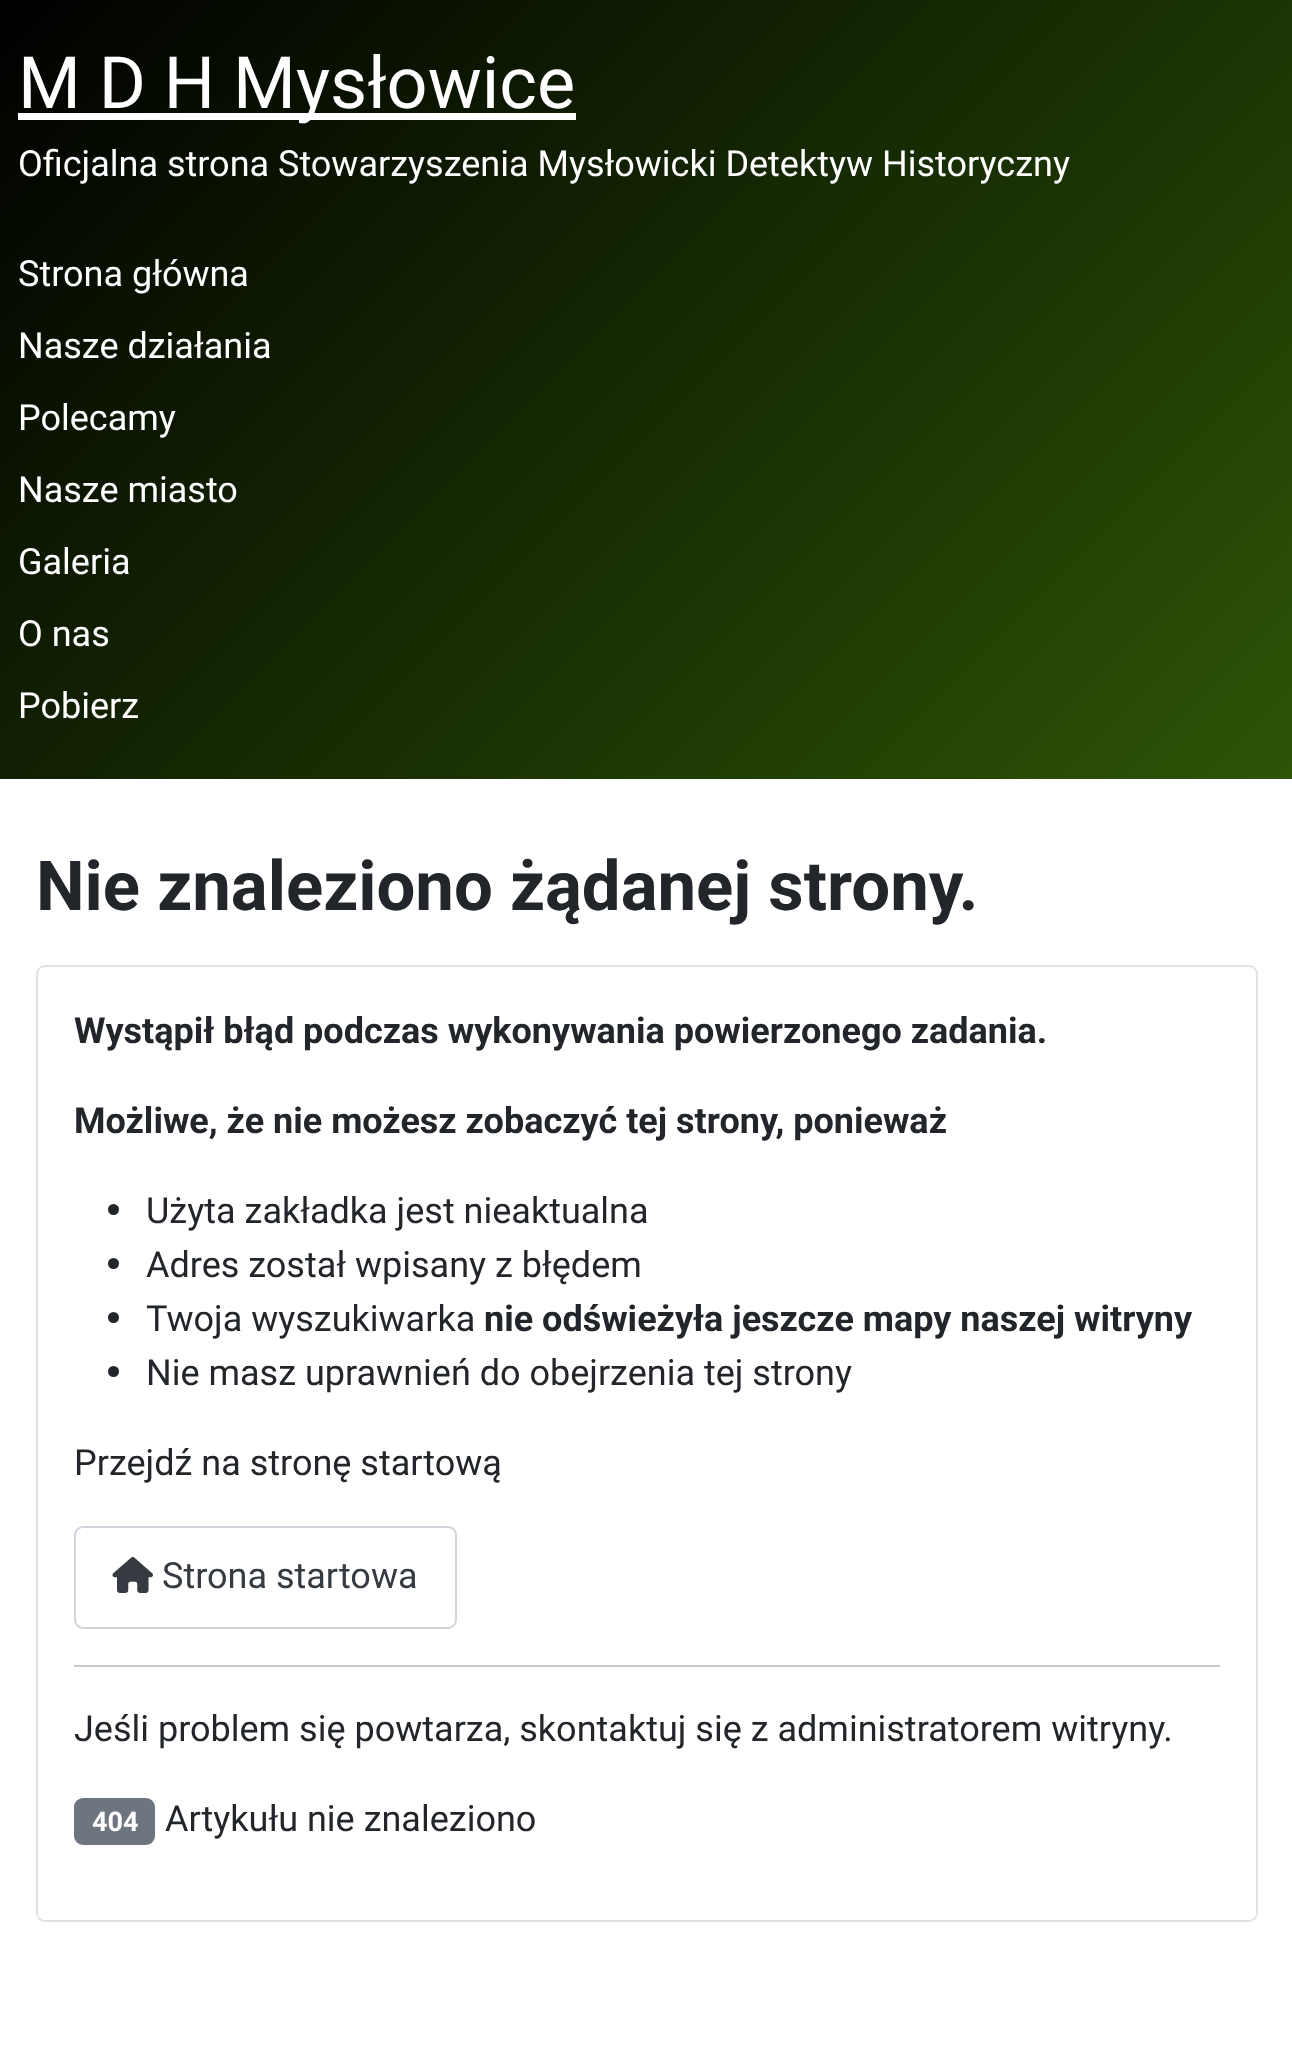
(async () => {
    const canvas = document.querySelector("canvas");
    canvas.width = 1292;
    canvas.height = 2051;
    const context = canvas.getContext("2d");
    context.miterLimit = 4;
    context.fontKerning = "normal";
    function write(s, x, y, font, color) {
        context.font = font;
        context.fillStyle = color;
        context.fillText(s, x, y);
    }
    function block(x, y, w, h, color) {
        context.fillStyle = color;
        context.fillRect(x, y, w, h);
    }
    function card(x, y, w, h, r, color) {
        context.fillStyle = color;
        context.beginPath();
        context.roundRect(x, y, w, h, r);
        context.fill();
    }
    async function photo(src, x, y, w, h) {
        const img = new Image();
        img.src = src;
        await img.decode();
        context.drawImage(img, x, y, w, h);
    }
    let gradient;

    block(0, 0, 1292, 2051, "rgb(255, 255, 255)");
    gradient = context.createLinearGradient(129, -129, 1165, 907);
    gradient.addColorStop(0, "rgb(0, 0, 0)");
    gradient.addColorStop(1, "rgb(45, 85, 6)");
    context.fillStyle = gradient;
    context.fillRect(0, 0, 1292, 779);
    block(18, 113, 558, 7, "rgb(255, 255, 255)");
    write("M D H Mysłowice", 18, 108, "72px Roboto", "rgb(255, 255, 255)");
    write("Oficjalna strona Stowarzyszenia Mysłowicki Detektyw Historyczny", 18, 176, "36px Roboto", "rgb(255, 255, 255)");
    write("Strona główna", 18, 286, "36px Roboto", "rgb(255, 255, 255)");
    write("Nasze działania", 18, 358, "36px Roboto", "rgb(255, 255, 255)");
    write("Polecamy", 18, 430, "36px Roboto", "rgb(255, 255, 255)");
    write("Nasze miasto", 18, 502, "36px Roboto", "rgb(255, 255, 255)");
    write("Galeria", 18, 574, "36px Roboto", "rgb(255, 255, 255)");
    write("O nas", 18, 646, "36px Roboto", "rgb(255, 255, 255)");
    write("Pobierz", 18, 718, "36px Roboto", "rgb(255, 255, 255)");
    write("Nie znaleziono żądanej strony.", 36, 910, "bold 68.9px Roboto", "rgb(34, 38, 42)");
    context.beginPath();
    context.roundRect(37, 966, 1220, 955, 8);
    context.strokeStyle = "rgb(223, 227, 231)";
    context.lineWidth = 2;
    context.stroke();
    write("Wystąpił błąd podczas wykonywania powierzonego zadania.", 74, 1043, "bold 36px Roboto", "rgb(34, 38, 42)");
    write("Możliwe, że nie możesz zobaczyć tej strony, ponieważ", 74, 1133, "bold 36px Roboto", "rgb(34, 38, 42)");
    context.beginPath();
    context.arc(113.5, 1209.5, 5.5, 0, Math.PI * 2);
    context.fill();
    write("Użyta zakładka jest nieaktualna", 146, 1223, "36px Roboto", "rgb(34, 38, 42)");
    context.beginPath();
    context.arc(113.5, 1263.5, 5.5, 0, Math.PI * 2);
    context.fill();
    write("Adres został wpisany z błędem", 146, 1277, "36px Roboto", "rgb(34, 38, 42)");
    context.beginPath();
    context.arc(113.5, 1317.5, 5.5, 0, Math.PI * 2);
    context.fill();
    write("Twoja wyszukiwarka", 146, 1331, "36px Roboto", "rgb(34, 38, 42)");
    write("nie odświeżyła jeszcze mapy naszej witryny", 484, 1331, "bold 36px Roboto", "rgb(34, 38, 42)");
    context.beginPath();
    context.arc(113.5, 1371.5, 5.5, 0, Math.PI * 2);
    context.fill();
    write("Nie masz uprawnień do obejrzenia tej strony", 146, 1385, "36px Roboto", "rgb(34, 38, 42)");
    write("Przejdź na stronę startową", 74, 1475, "36px Roboto", "rgb(34, 38, 42)");
    context.beginPath();
    context.roundRect(75, 1527, 381, 101, 8);
    context.strokeStyle = "rgb(206, 212, 218)";
    context.stroke();
    await photo("media/1.png", 112, 1557, 41, 36);
    write("Strona startowa", 162, 1588, "36px Roboto", "rgb(53, 59, 65)");
    block(74, 1665, 1146, 2, "rgb(200, 201, 202)");
    write("Jeśli problem się powtarza, skontaktuj się z administratorem witryny.", 74, 1741, "36px Roboto", "rgb(34, 38, 42)");
    card(74, 1798, 81, 47, 9, "rgb(109, 117, 126)");
    write("404", 92, 1831, "bold 27px Roboto", "rgb(255, 255, 255)");
    write("Artykułu nie znaleziono", 165, 1831, "36px Roboto", "rgb(34, 38, 42)");
})();
